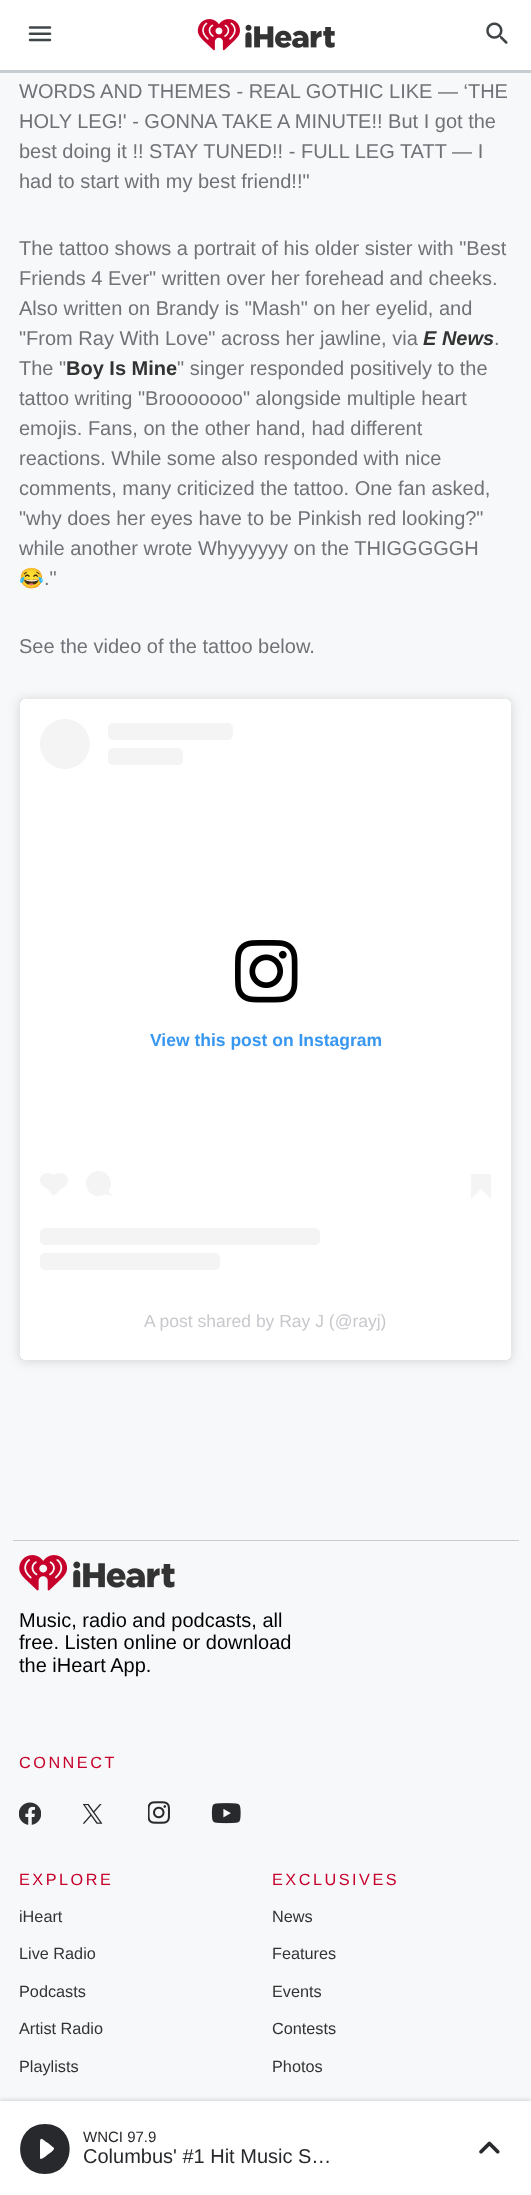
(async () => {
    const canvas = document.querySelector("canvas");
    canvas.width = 531;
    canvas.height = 2195;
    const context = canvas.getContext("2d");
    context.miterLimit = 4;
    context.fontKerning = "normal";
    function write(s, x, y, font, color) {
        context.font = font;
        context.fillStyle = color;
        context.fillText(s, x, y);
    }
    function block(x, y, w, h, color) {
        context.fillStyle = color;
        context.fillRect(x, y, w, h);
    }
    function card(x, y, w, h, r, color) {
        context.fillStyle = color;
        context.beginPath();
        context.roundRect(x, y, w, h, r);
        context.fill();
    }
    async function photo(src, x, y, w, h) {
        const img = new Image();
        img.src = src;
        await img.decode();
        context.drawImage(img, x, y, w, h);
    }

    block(0, 0, 531, 2195, "rgb(246, 248, 249)");
    block(0, 0, 531, 70, "rgb(255, 255, 255)");
    block(0, 70, 531, 3, "rgb(197, 205, 210)");
    await photo("media/1.png", 28, 26, 24, 16);
    await photo("media/2.png", 197, 19, 138, 32);
    await photo("media/3.png", 486, 22, 22, 22);
    write("WORDS AND THEMES - REAL GOTHIC LIKE — ‘THE", 19, 98, "20px Liberation Sans", "rgb(113, 114, 119)");
    write("HOLY LEG!' - GONNA TAKE A MINUTE!! But I got the", 19, 128, "20px Liberation Sans", "rgb(113, 114, 119)");
    write("best doing it !! STAY TUNED!! - FULL LEG TATT — I", 19, 158, "20px Liberation Sans", "rgb(113, 114, 119)");
    write("had to start with my best friend!!\"", 19, 188, "20px Liberation Sans", "rgb(113, 114, 119)");
    write("The tattoo shows a portrait of his older sister with \"Best", 19, 255, "20px Liberation Sans", "rgb(113, 114, 119)");
    write("Friends 4 Ever\" written over her forehead and cheeks.", 19, 285, "20px Liberation Sans", "rgb(113, 114, 119)");
    write("Also written on Brandy is \"Mash\" on her eyelid, and", 19, 315, "20px Liberation Sans", "rgb(113, 114, 119)");
    write("\"From Ray With Love\" across her jawline, via", 19, 345, "20px Liberation Sans", "rgb(113, 114, 119)");
    write("E News", 423, 345, "italic bold 20px Liberation Sans", "rgb(51, 51, 51)");
    write(".", 494, 345, "20px Liberation Sans", "rgb(113, 114, 119)");
    write("The \"", 19, 375, "20px Liberation Sans", "rgb(113, 114, 119)");
    write("Boy Is Mine", 66, 375, "bold 20px Liberation Sans", "rgb(51, 51, 51)");
    write("\" singer responded positively to the", 177, 375, "20px Liberation Sans", "rgb(113, 114, 119)");
    write("tattoo writing \"Brooooooo\" alongside multiple heart", 19, 405, "20px Liberation Sans", "rgb(113, 114, 119)");
    write("emojis. Fans, on the other hand, had different", 19, 435, "20px Liberation Sans", "rgb(113, 114, 119)");
    write("reactions. While some also responded with nice", 19, 465, "20px Liberation Sans", "rgb(113, 114, 119)");
    write("comments, many criticized the tattoo. One fan asked,", 19, 495, "20px Liberation Sans", "rgb(113, 114, 119)");
    write("\"why does her eyes have to be Pinkish red looking?\"", 19, 525, "20px Liberation Sans", "rgb(113, 114, 119)");
    write("while another wrote Whyyyyyy on the THIGGGGGH", 19, 555, "20px Liberation Sans", "rgb(113, 114, 119)");
    write("😂", 19, 585, "20px Noto Color Emoji", "rgb(113, 114, 119)");
    write(".\"", 44, 585, "20px Liberation Sans", "rgb(113, 114, 119)");
    write("See the video of the tattoo below.", 19, 653, "20px Liberation Sans", "rgb(113, 114, 119)");
    context.fillStyle = "rgba(0, 0, 0, 0.15)";
    context.filter = "blur(6px)";
    context.beginPath();
    context.roundRect(20, 700, 491, 661, 4);
    context.fill();
    context.filter = "none";
    context.fillStyle = "rgba(0, 0, 0, 0.5)";
    context.filter = "blur(0.5px)";
    context.beginPath();
    context.roundRect(20, 699, 491, 661, 4);
    context.fill();
    context.filter = "none";
    card(20, 699, 491, 661, 4, "rgb(255, 255, 255)");
    context.fillStyle = "rgb(244, 244, 244)";
    context.beginPath();
    context.arc(65, 744, 25, 0, Math.PI * 2);
    context.fill();
    card(108, 723, 125, 17, 5, "rgb(244, 244, 244)");
    card(108, 748, 75, 17, 5, "rgb(244, 244, 244)");
    await photo("media/4.png", 235, 940, 63, 63);
    write("View this post on Instagram", 150, 1046, "bold 17.5px Liberation Sans", "rgb(56, 151, 240)");
    card(40, 1173, 16, 15, 7.5, "rgb(244, 244, 244)");
    context.beginPath();
    context.moveTo(43, 1185);
    context.lineTo(54, 1174);
    context.lineTo(65, 1185);
    context.lineTo(54, 1196);
    context.closePath();
    context.fill();
    card(51, 1173, 17, 15, 7.5, "rgb(244, 244, 244)");
    context.beginPath();
    context.arc(98.5, 1183.5, 12.5, 0, Math.PI * 2);
    context.fill();
    context.beginPath();
    context.moveTo(105, 1194.5);
    context.lineTo(107.5, 1190.5);
    context.lineTo(112.5, 1196);
    context.closePath();
    context.fill();
    block(471, 1174, 20, 15, "rgb(244, 244, 244)");
    context.beginPath();
    context.moveTo(471, 1189);
    context.lineTo(481, 1189);
    context.lineTo(471, 1199);
    context.closePath();
    context.fill();
    context.beginPath();
    context.moveTo(481, 1189);
    context.lineTo(491, 1189);
    context.lineTo(491, 1199);
    context.closePath();
    context.fill();
    card(40, 1228, 280, 17, 5, "rgb(244, 244, 244)");
    card(40, 1253, 180, 17, 5, "rgb(244, 244, 244)");
    write("A post shared by Ray J (@rayj)", 144, 1327, "17.5px Liberation Sans", "rgb(201, 200, 205)");
    block(13, 1540, 506, 1, "rgb(197, 205, 210)");
    await photo("media/5.png", 19, 1555, 156, 36);
    write("Music, radio and podcasts, all", 19, 1627, "20px Liberation Sans", "rgb(0, 0, 0)");
    write("free. Listen online or download", 19, 1649, "20px Liberation Sans", "rgb(0, 0, 0)");
    write("the iHeart App.", 19, 1672, "20px Liberation Sans", "rgb(0, 0, 0)");
    context.letterSpacing = "2.5px";
    write("CONNECT", 19, 1768, "16.25px Liberation Sans", "rgb(198, 0, 43)");
    await photo("media/6.png", 19, 1802, 22, 23);
    await photo("media/7.png", 83, 1804, 20, 20);
    await photo("media/8.png", 148, 1801, 22, 23);
    await photo("media/9.png", 211, 1803, 30, 21);
    write("EXPLORE", 19, 1885, "16.25px Liberation Sans", "rgb(198, 0, 43)");
    context.letterSpacing = "0px";
    write("iHeart", 19, 1922, "16.25px Liberation Sans", "rgb(51, 51, 51)");
    write("Live Radio", 19, 1959, "16.25px Liberation Sans", "rgb(51, 51, 51)");
    write("Podcasts", 19, 1997, "16.25px Liberation Sans", "rgb(51, 51, 51)");
    write("Artist Radio", 19, 2034, "16.25px Liberation Sans", "rgb(51, 51, 51)");
    write("Playlists", 19, 2072, "16.25px Liberation Sans", "rgb(51, 51, 51)");
    context.letterSpacing = "2.5px";
    write("EXCLUSIVES", 272, 1885, "16.25px Liberation Sans", "rgb(198, 0, 43)");
    context.letterSpacing = "0px";
    write("News", 272, 1922, "16.25px Liberation Sans", "rgb(51, 51, 51)");
    write("Features", 272, 1959, "16.25px Liberation Sans", "rgb(51, 51, 51)");
    write("Events", 272, 1997, "16.25px Liberation Sans", "rgb(51, 51, 51)");
    write("Contests", 272, 2034, "16.25px Liberation Sans", "rgb(51, 51, 51)");
    write("Photos", 272, 2072, "16.25px Liberation Sans", "rgb(51, 51, 51)");
    context.fillStyle = "rgba(0, 0, 0, 0.15)";
    context.filter = "blur(2px)";
    context.beginPath();
    context.rect(0, 2100, 531, 94);
    context.fill();
    context.filter = "none";
    block(0, 2101, 531, 94, "rgb(255, 255, 255)");
    context.fillStyle = "rgb(39, 41, 45)";
    context.beginPath();
    context.moveTo(45, 2124);
    context.bezierCurveTo(12, 2124, 12, 2174, 45, 2174);
    context.bezierCurveTo(78, 2174, 78, 2124, 45, 2124);
    context.closePath();
    context.moveTo(40, 2158);
    context.lineTo(40, 2143);
    context.bezierCurveTo(40, 2135, 43, 2140, 48, 2143);
    context.lineTo(54, 2148);
    context.bezierCurveTo(55, 2150, 47, 2155, 46, 2156);
    context.bezierCurveTo(46, 2156, 40, 2161, 40, 2158);
    context.closePath();
    context.fill();
    write("WNCI 97.9", 83, 2142, "15px Liberation Sans", "rgb(39, 41, 45)");
    write("Columbus' #1 Hit Music S…", 83, 2163, "20px Liberation Sans", "rgb(39, 41, 45)");
    await photo("media/10.png", 479, 2141, 21, 13);
})();
